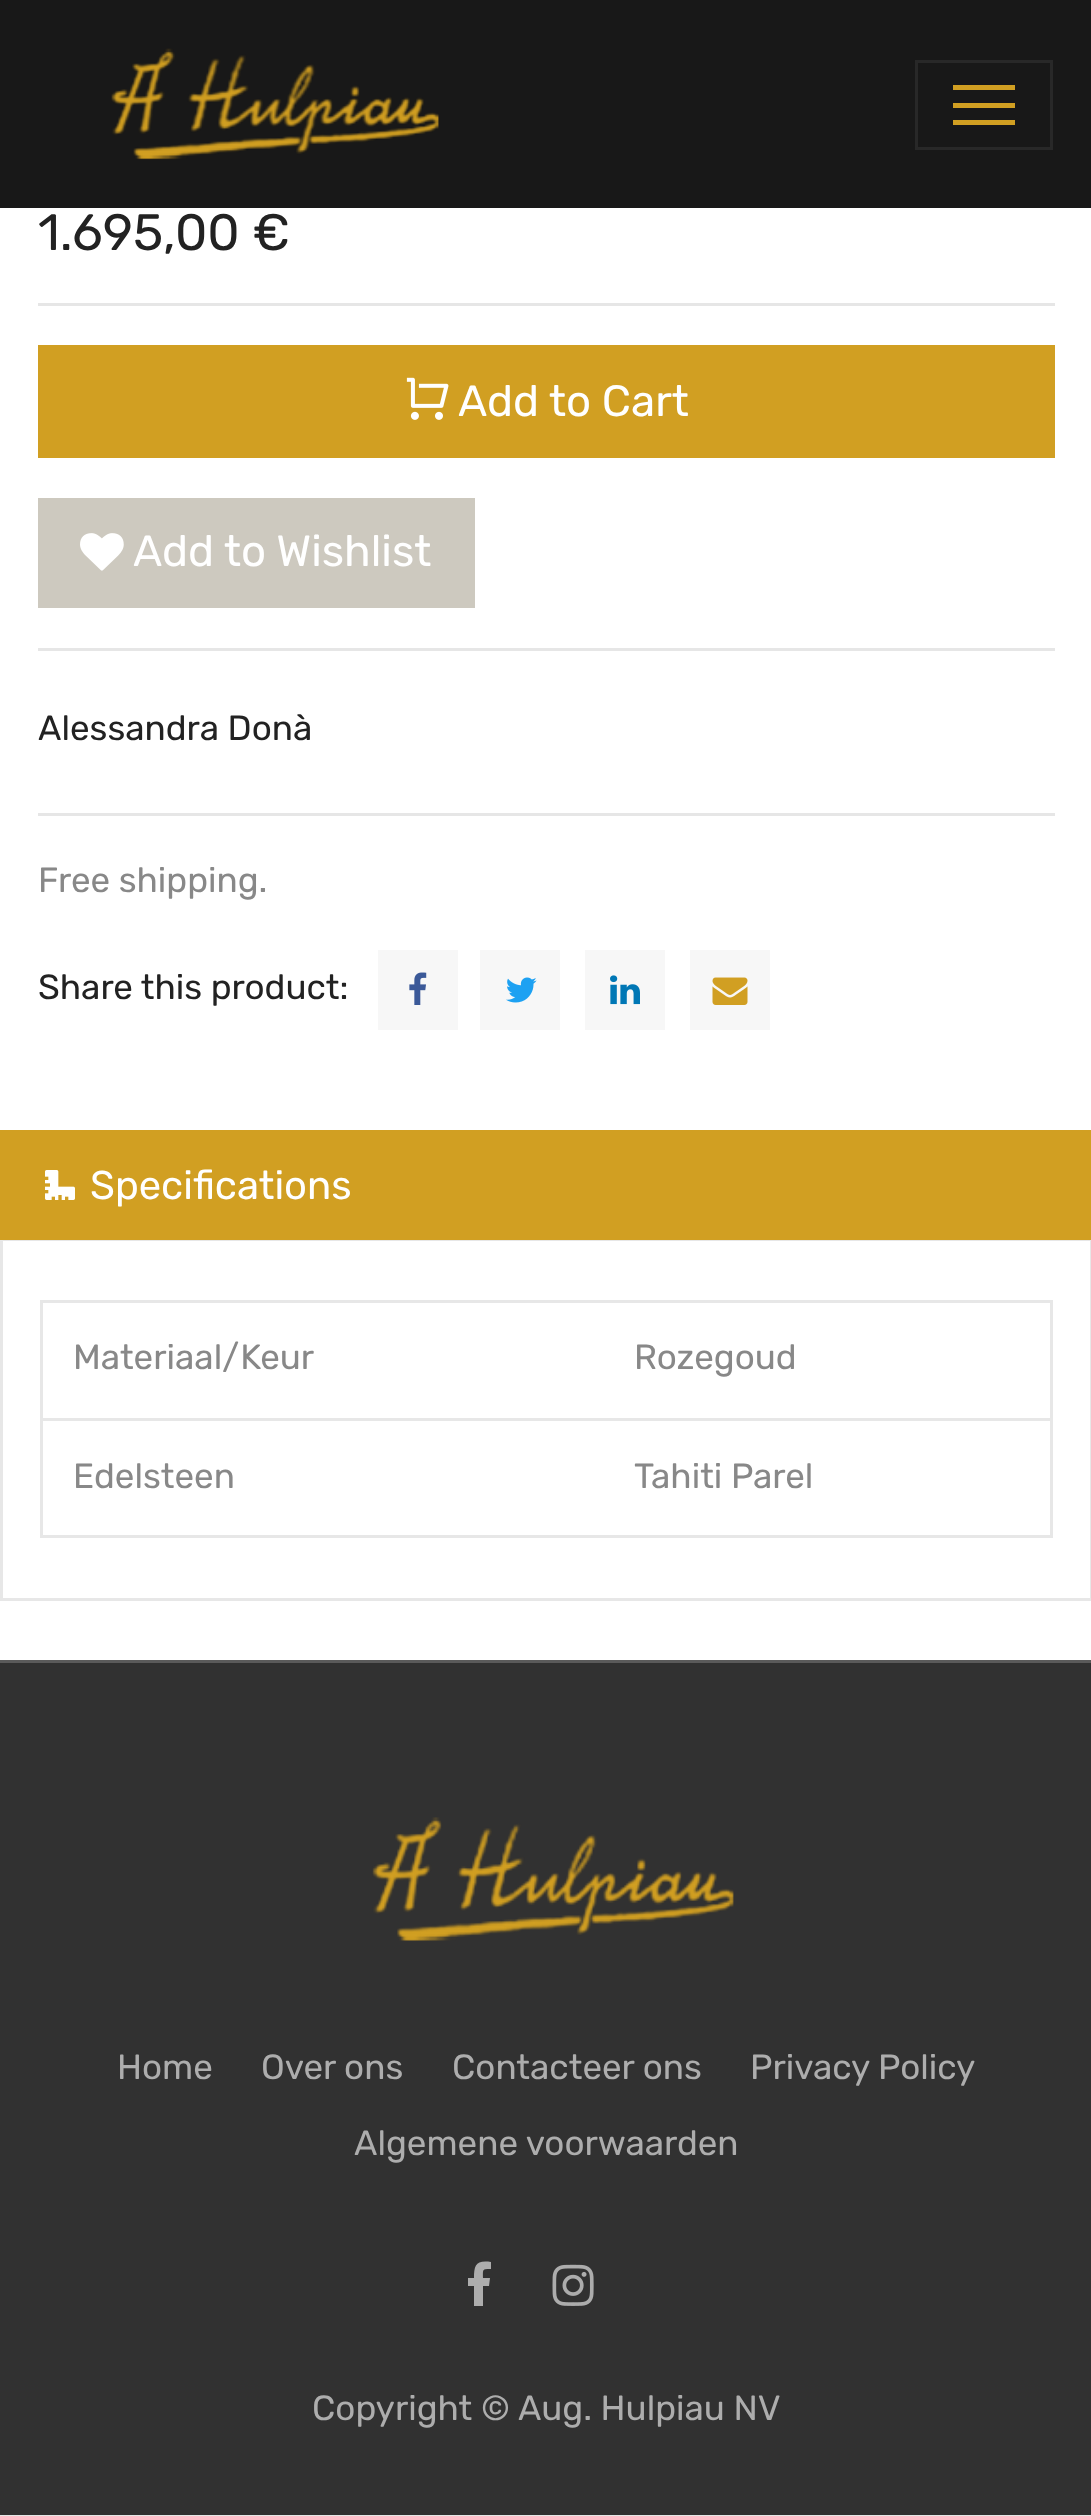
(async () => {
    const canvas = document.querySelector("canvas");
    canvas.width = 1091;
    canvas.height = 2516;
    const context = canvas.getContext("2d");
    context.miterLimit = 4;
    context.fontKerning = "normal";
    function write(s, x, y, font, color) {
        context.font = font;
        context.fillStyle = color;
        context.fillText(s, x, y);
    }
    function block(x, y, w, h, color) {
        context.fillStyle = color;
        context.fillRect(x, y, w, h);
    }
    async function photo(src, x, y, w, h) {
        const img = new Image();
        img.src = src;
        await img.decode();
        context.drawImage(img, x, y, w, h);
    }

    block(0, 0, 1091, 2516, "rgb(255, 255, 255)");
    block(0, 0, 1091, 208, "rgb(24, 24, 24)");
    await photo("media/1.png", 111, 48, 328, 112);
    context.strokeStyle = "rgb(40, 40, 40)";
    context.lineWidth = 3;
    context.strokeRect(916.5, 61.5, 135, 87);
    block(953, 85, 62, 5, "rgb(209, 159, 34)");
    block(953, 103, 62, 5, "rgb(209, 159, 34)");
    block(953, 120, 62, 5, "rgb(209, 159, 34)");
    write("1.695,00 €", 38, 250, "51px Rubik", "rgb(34, 34, 34)");
    block(38, 303, 1017, 3, "rgb(230, 230, 230)");
    block(38, 345, 1017, 113, "rgb(209, 159, 34)");
    await photo("media/2.png", 406, 377, 43, 43);
    write("Add to Cart", 458, 416, "43.75px Rubik", "rgb(255, 255, 255)");
    block(38, 498, 437, 110, "rgb(205, 201, 191)");
    await photo("media/3.png", 80, 533, 44, 38);
    write("Add to Wishlist", 133, 566, "43.75px Rubik", "rgb(255, 255, 255)");
    block(38, 648, 1017, 3, "rgb(230, 230, 230)");
    write("Alessandra Donà", 38, 740, "35px Rubik", "rgb(34, 34, 34)");
    block(38, 813, 1017, 3, "rgb(230, 230, 230)");
    write("Free shipping.", 38, 892, "35px Rubik", "rgb(136, 136, 136)");
    write("Share this product:", 38, 999, "35px Rubik", "rgb(34, 34, 34)");
    block(378, 950, 80, 80, "rgb(247, 247, 247)");
    await photo("media/4.png", 409, 972, 18, 33);
    block(480, 950, 80, 80, "rgb(247, 247, 247)");
    await photo("media/5.png", 506, 977, 31, 26);
    block(585, 950, 80, 80, "rgb(247, 247, 247)");
    await photo("media/6.png", 610, 975, 30, 30);
    block(690, 950, 80, 80, "rgb(247, 247, 247)");
    await photo("media/7.png", 712, 977, 36, 28);
    block(0, 1240, 1091, 1, "rgb(231, 231, 231)");
    block(0, 1130, 1091, 110, "rgb(209, 159, 34)");
    await photo("media/8.png", 45, 1170, 30, 30);
    write("Specifications", 90, 1199, "40px Rubik", "rgb(255, 255, 255)");
    block(1090, 1240, 1, 360, "rgb(231, 231, 231)");
    block(0, 1598, 1091, 3, "rgb(231, 231, 231)");
    block(0, 1240, 3, 360, "rgb(231, 231, 231)");
    block(40, 1300, 1013, 3, "rgb(231, 231, 231)");
    block(1050, 1300, 3, 238, "rgb(231, 231, 231)");
    block(40, 1535, 1013, 3, "rgb(231, 231, 231)");
    block(40, 1300, 3, 238, "rgb(231, 231, 231)");
    write("Materiaal/Keur", 73, 1369, "35px Rubik", "rgb(136, 136, 136)");
    write("Rozegoud", 634, 1369, "35px Rubik", "rgb(136, 136, 136)");
    write("Edelsteen", 73, 1488, "35px Rubik", "rgb(136, 136, 136)");
    block(40, 1418, 1013, 3, "rgb(231, 231, 231)");
    write("Tahiti Parel", 634, 1488, "35px Rubik", "rgb(136, 136, 136)");
    block(0, 1663, 1091, 852, "rgb(49, 49, 49)");
    block(0, 1660, 1091, 3, "rgb(90, 90, 90)");
    await photo("media/9.png", 372, 1817, 362, 124);
    write("Home", 117, 2079, "35px Rubik", "rgb(173, 173, 173)");
    write("Over ons", 261, 2079, "35px Rubik", "rgb(173, 173, 173)");
    write("Contacteer ons", 452, 2079, "35px Rubik", "rgb(173, 173, 173)");
    write("Privacy Policy", 750, 2079, "35px Rubik", "rgb(173, 173, 173)");
    write("Algemene voorwaarden", 354, 2155, "35px Rubik", "rgb(173, 173, 173)");
    context.beginPath();
    context.moveTo(491, 2262);
    context.lineTo(491, 2269);
    context.bezierCurveTo(482, 2269, 483, 2269, 483, 2278);
    context.lineTo(490, 2278);
    context.lineTo(489, 2286);
    context.lineTo(483, 2286);
    context.lineTo(483, 2306);
    context.lineTo(474, 2306);
    context.lineTo(474, 2286);
    context.lineTo(468, 2286);
    context.lineTo(468, 2278);
    context.lineTo(474, 2278);
    context.bezierCurveTo(474, 2265, 476, 2260, 491, 2262);
    context.closePath();
    context.fill();
    await photo("media/10.png", 552, 2264, 42, 42);
    write("Copyright ©", 312, 2420, "35px Rubik", "rgb(173, 173, 173)");
    write("Aug. Hulpiau NV", 518, 2420, "35px Rubik", "rgb(173, 173, 173)");
    block(0, 2515, 1091, 1, "rgb(231, 231, 231)");
})();
